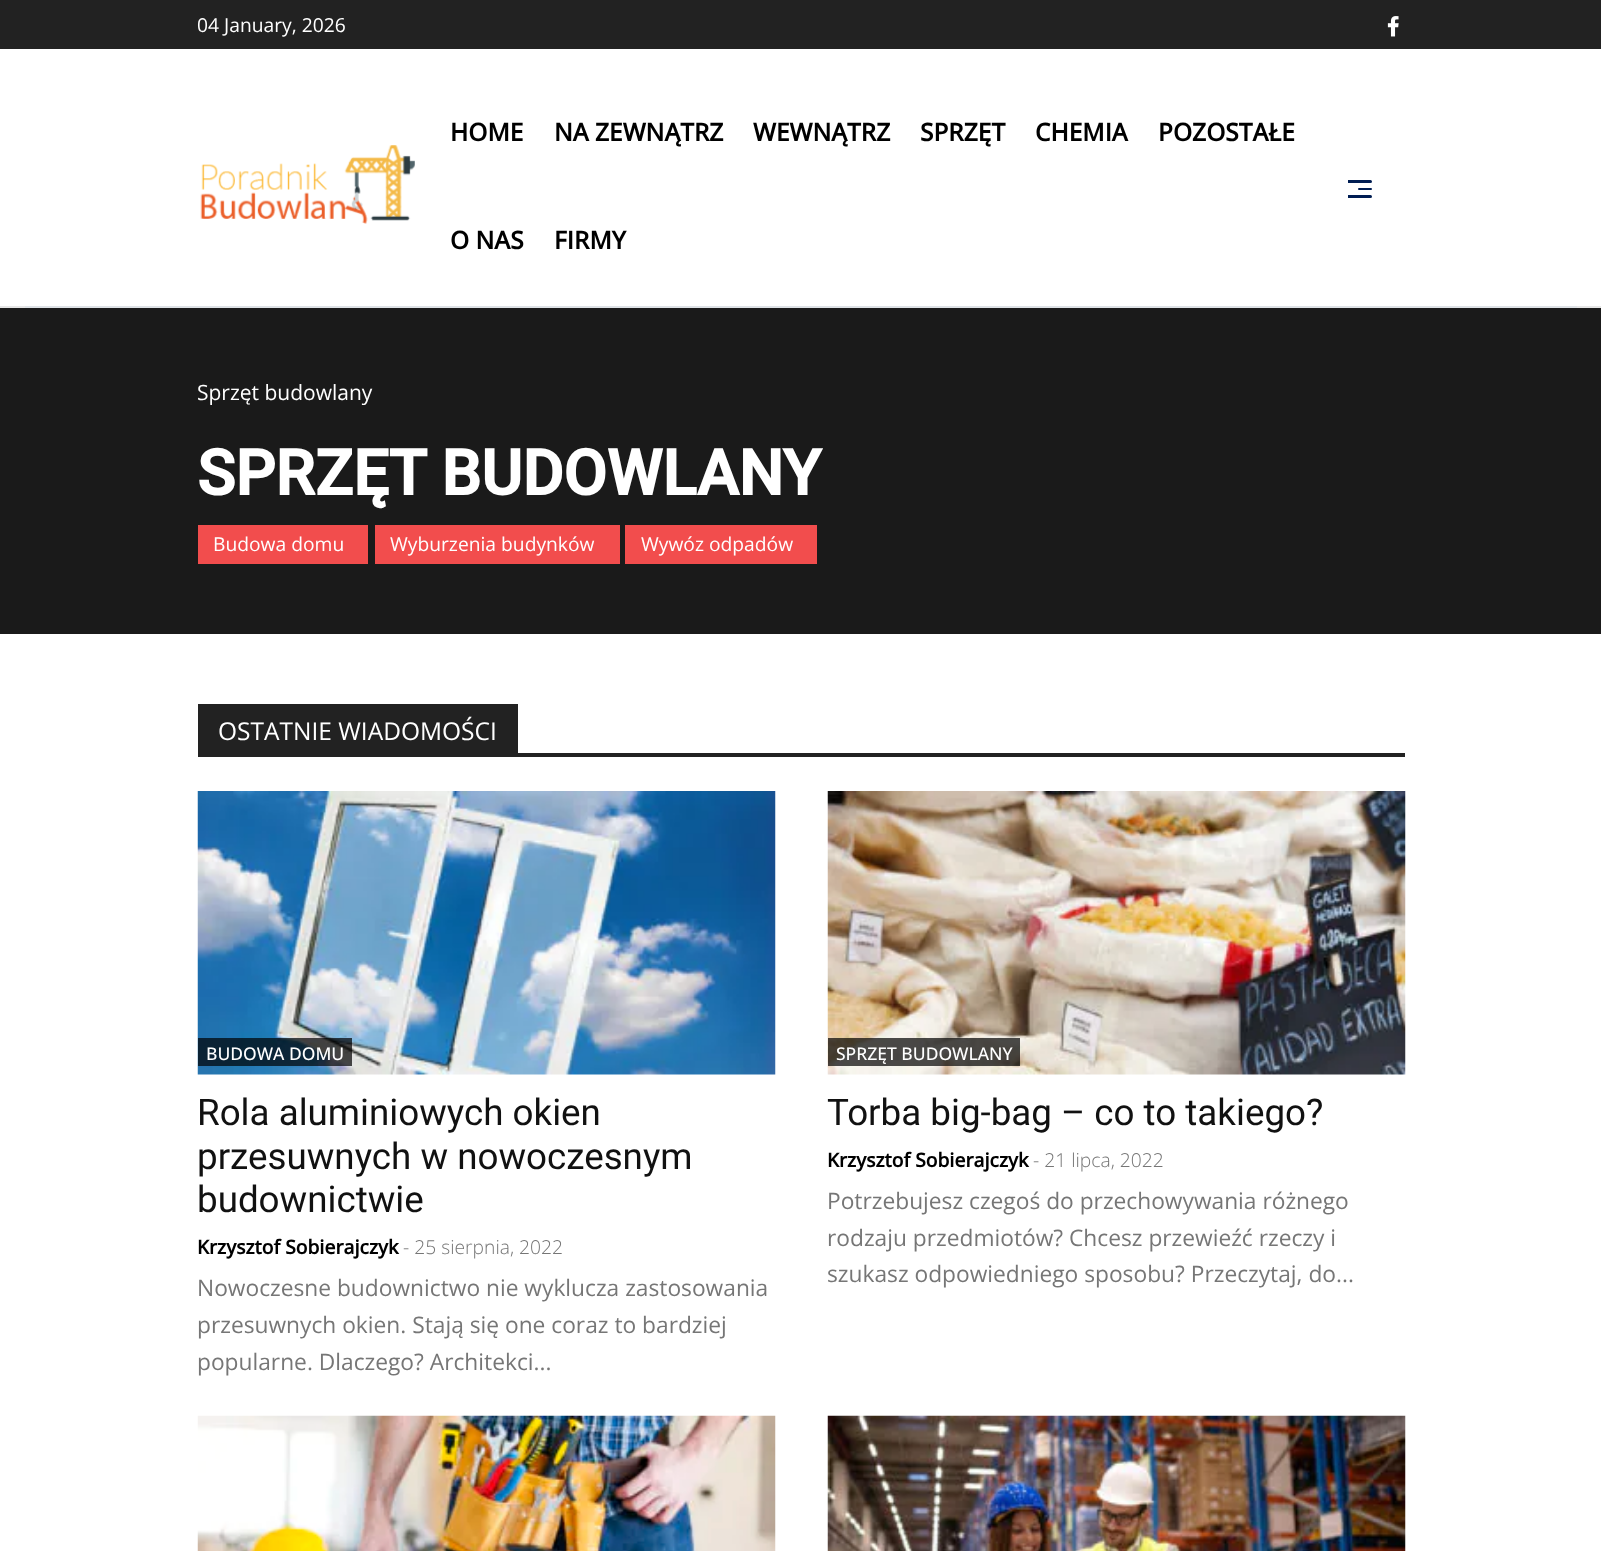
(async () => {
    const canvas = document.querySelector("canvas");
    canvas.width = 1601;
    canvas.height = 1551;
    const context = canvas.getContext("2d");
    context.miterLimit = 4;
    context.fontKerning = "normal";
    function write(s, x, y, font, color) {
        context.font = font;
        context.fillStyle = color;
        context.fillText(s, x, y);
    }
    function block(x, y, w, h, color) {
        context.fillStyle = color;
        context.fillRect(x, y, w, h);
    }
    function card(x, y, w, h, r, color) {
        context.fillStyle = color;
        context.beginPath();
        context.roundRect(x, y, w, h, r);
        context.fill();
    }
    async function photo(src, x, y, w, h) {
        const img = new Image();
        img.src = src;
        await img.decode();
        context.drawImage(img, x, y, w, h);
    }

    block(0, 0, 1601, 1551, "rgb(255, 255, 255)");
    block(0, 0, 1601, 49, "rgb(34, 34, 34)");
    write("04 January, 2026", 197, 32, "19.25px Open Sans", "rgb(255, 255, 255)");
    await photo("media/1.png", 1387, 16, 12, 21);
    block(0, 306, 1601, 2, "rgb(230, 230, 230)");
    block(25, 306, 1552, 2, "rgb(222, 226, 230)");
    await photo("media/2.png", 200, 145, 215, 79);
    write("HOME", 450, 141, "bold 24.5px Open Sans", "rgb(0, 0, 0)");
    write("NA ZEWNĄTRZ", 554, 141, "bold 24.5px Open Sans", "rgb(0, 0, 0)");
    write("WEWNĄTRZ", 753, 141, "bold 24.5px Open Sans", "rgb(0, 0, 0)");
    write("SPRZĘT", 920, 141, "bold 24.5px Open Sans", "rgb(0, 0, 0)");
    write("CHEMIA", 1035, 141, "bold 24.5px Open Sans", "rgb(0, 0, 0)");
    write("POZOSTAŁE", 1158, 141, "bold 24.5px Open Sans", "rgb(0, 0, 0)");
    write("O NAS", 450, 249, "bold 24.5px Open Sans", "rgb(0, 0, 0)");
    write("FIRMY", 554, 249, "bold 24.5px Open Sans", "rgb(0, 0, 0)");
    context.save();
    context.beginPath();
    context.rect(1348, 180, 24, 18);
    context.clip();
    card(1347, 180, 25, 3, 1.5, "rgb(0, 29, 83)");
    context.restore();
    card(1358, 188, 14, 2, 1, "rgb(0, 29, 83)");
    context.save();
    context.beginPath();
    context.rect(1348, 180, 24, 18);
    context.clip();
    card(1347, 195, 25, 3, 1.5, "rgb(0, 29, 83)");
    context.restore();
    block(0, 308, 1601, 326, "rgb(26, 26, 26)");
    write("Sprzęt budowlany", 197, 400, "21px Open Sans", "rgb(255, 255, 255)");
    write("SPRZĘT BUDOWLANY", 197, 495, "bold 63px Roboto", "rgb(255, 255, 255)");
    block(198, 525, 170, 39, "rgb(242, 77, 77)");
    write("Budowa domu", 213, 551, "19.25px Open Sans", "rgb(255, 255, 255)");
    block(375, 525, 245, 39, "rgb(242, 77, 77)");
    write("Wyburzenia budynków", 390, 551, "19.25px Open Sans", "rgb(255, 255, 255)");
    block(625, 525, 192, 39, "rgb(242, 77, 77)");
    write("Wywóz odpadów", 641, 551, "19.25px Open Sans", "rgb(255, 255, 255)");
    block(198, 753, 1207, 4, "rgb(34, 34, 34)");
    block(198, 704, 320, 49, "rgb(34, 34, 34)");
    write("OSTATNIE WIADOMOŚCI", 218, 740, "24.5px Open Sans", "rgb(255, 255, 255)");
    await photo("media/3.png", 197, 791, 579, 284);
    block(198, 1038, 154, 28, "rgba(0, 0, 0, 0.7)");
    write("BUDOWA DOMU", 206, 1060, "500 17.5px Open Sans", "rgb(255, 255, 255)");
    write("Rola aluminiowych okien", 197, 1125, "36.75px Roboto", "rgb(17, 17, 17)");
    write("przesuwnych w nowoczesnym", 197, 1169, "36.75px Roboto", "rgb(17, 17, 17)");
    write("budownictwie", 197, 1212, "36.75px Roboto", "rgb(17, 17, 17)");
    write("Krzysztof Sobierajczyk", 197, 1254, "bold 19.25px Open Sans", "rgb(0, 0, 0)");
    write("- 25 sierpnia, 2022", 403, 1254, "300 19.25px Open Sans", "rgb(118, 118, 118)");
    write("Nowoczesne budownictwo nie wyklucza zastosowania", 197, 1296, "22.75px Open Sans", "rgb(118, 118, 118)");
    write("przesuwnych okien. Stają się one coraz to bardziej", 197, 1333, "22.75px Open Sans", "rgb(118, 118, 118)");
    write("popularne. Dlaczego? Architekci...", 197, 1370, "22.75px Open Sans", "rgb(118, 118, 118)");
    await photo("media/4.png", 827, 791, 579, 284);
    block(828, 1038, 192, 28, "rgba(0, 0, 0, 0.7)");
    write("SPRZĘT BUDOWLANY", 836, 1060, "500 17.5px Open Sans", "rgb(255, 255, 255)");
    write("Torba big-bag – co to takiego?", 827, 1125, "36.75px Roboto", "rgb(17, 17, 17)");
    write("Krzysztof Sobierajczyk", 827, 1167, "bold 19.25px Open Sans", "rgb(0, 0, 0)");
    write("- 21 lipca, 2022", 1033, 1167, "300 19.25px Open Sans", "rgb(118, 118, 118)");
    write("Potrzebujesz czegoś do przechowywania różnego", 827, 1209, "22.75px Open Sans", "rgb(118, 118, 118)");
    write("rodzaju przedmiotów? Chcesz przewieźć rzeczy i", 827, 1246, "22.75px Open Sans", "rgb(118, 118, 118)");
    write("szukasz odpowiedniego sposobu? Przeczytaj, do...", 827, 1282, "22.75px Open Sans", "rgb(118, 118, 118)");
    await photo("media/5.png", 197, 1415, 579, 136);
    await photo("media/6.png", 827, 1415, 579, 136);
})();
